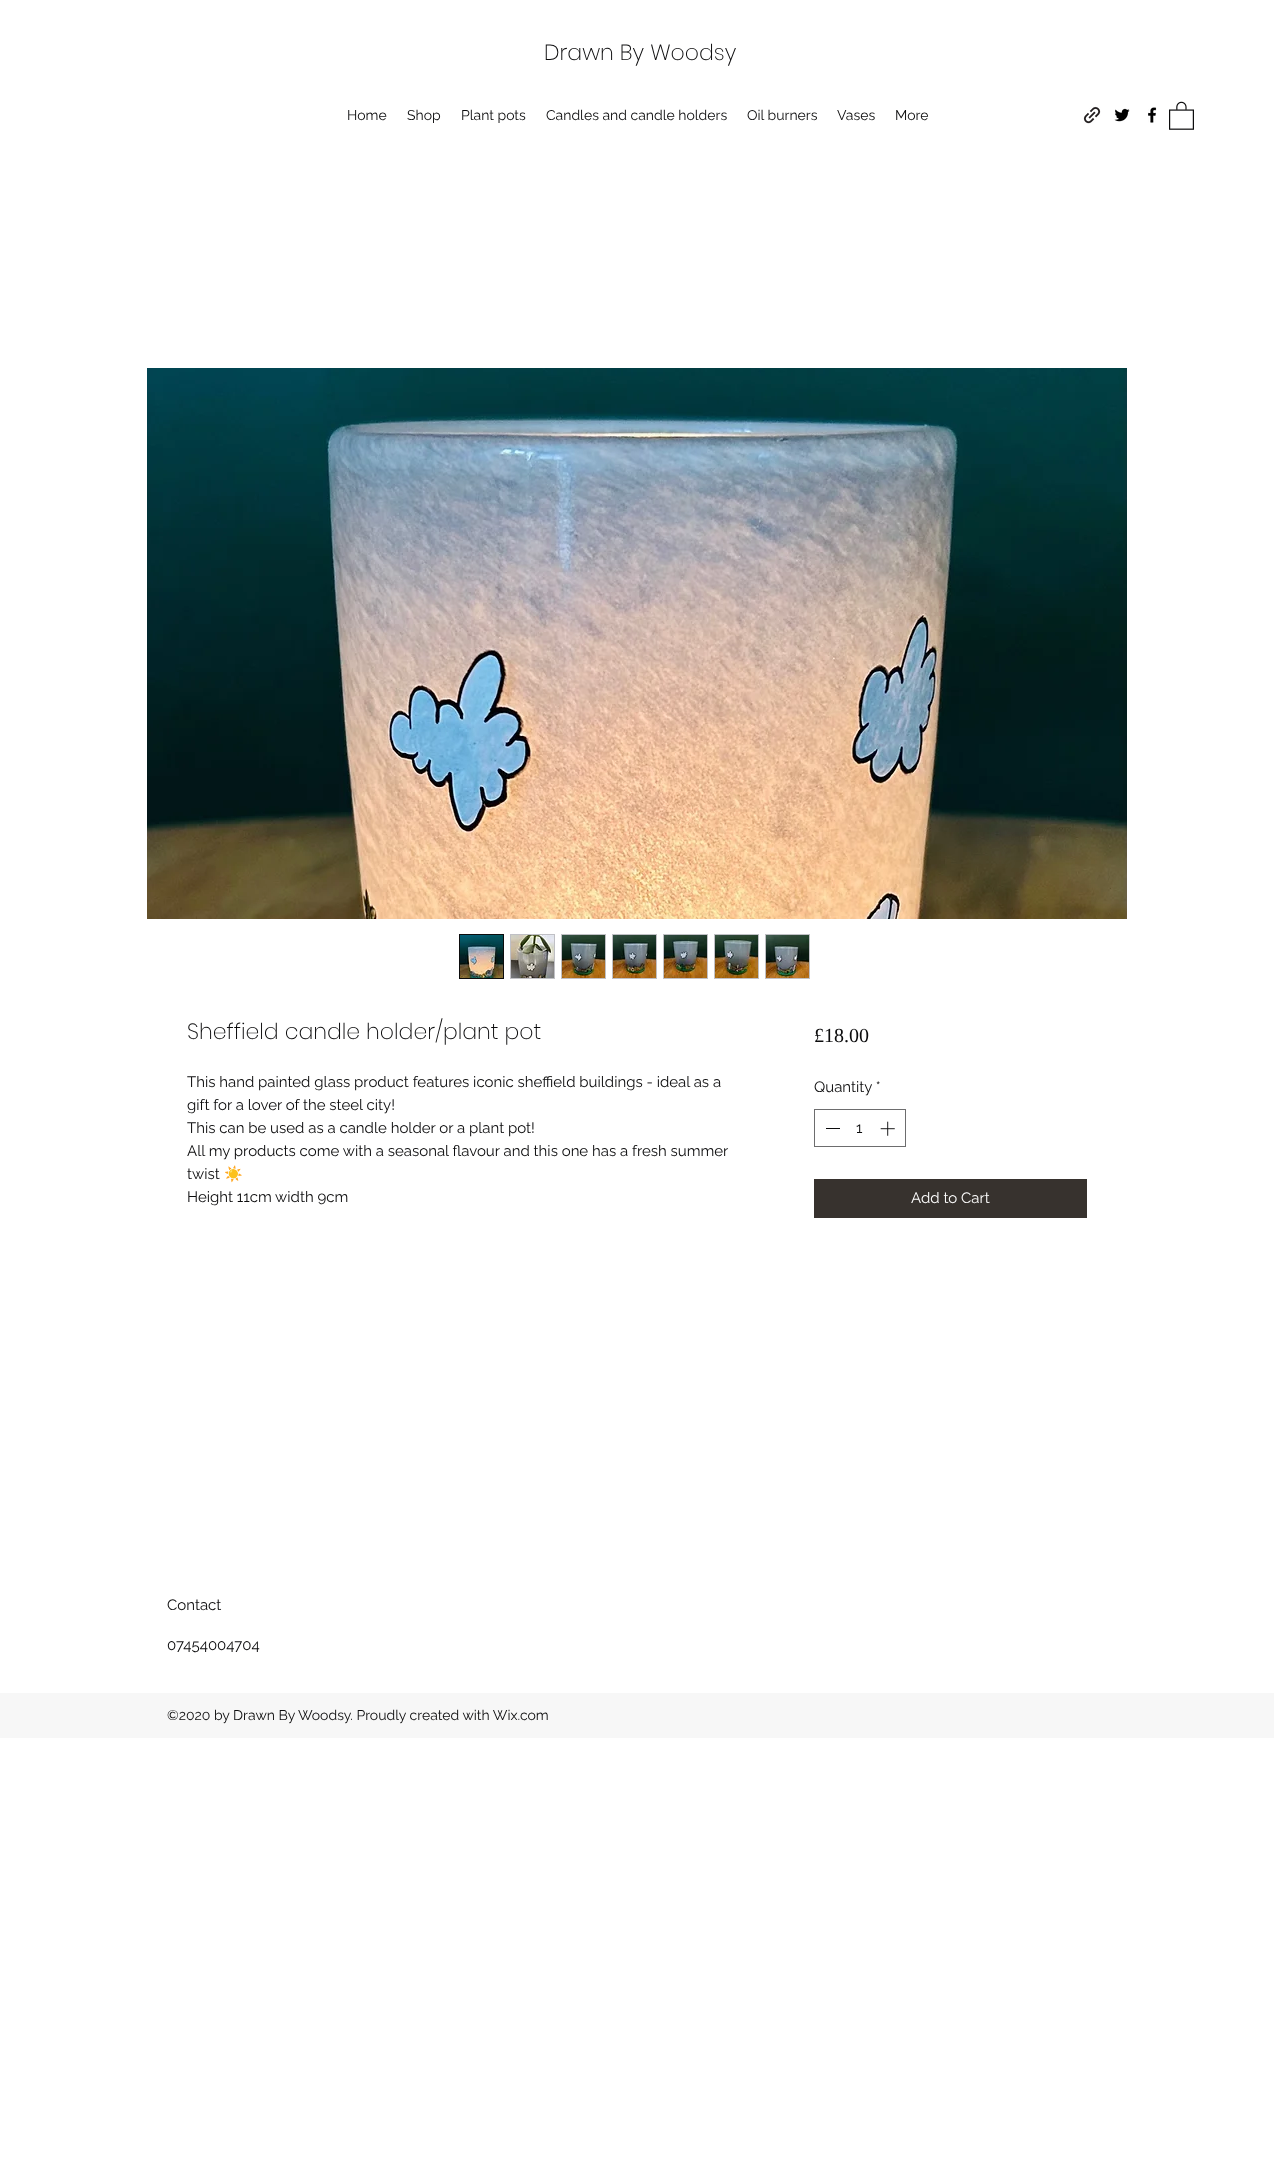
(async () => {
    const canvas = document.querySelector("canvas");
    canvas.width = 1274;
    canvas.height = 2163;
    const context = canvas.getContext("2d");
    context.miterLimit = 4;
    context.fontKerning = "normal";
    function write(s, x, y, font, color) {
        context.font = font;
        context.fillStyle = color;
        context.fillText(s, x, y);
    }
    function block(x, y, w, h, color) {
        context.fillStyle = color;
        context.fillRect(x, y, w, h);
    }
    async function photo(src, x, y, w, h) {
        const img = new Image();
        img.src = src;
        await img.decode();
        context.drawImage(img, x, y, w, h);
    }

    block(0, 0, 1274, 2163, "rgb(255, 255, 255)");
    write("Drawn By Woodsy", 544, 60, "200 22px Poppins", "rgb(12, 12, 13)");
    write("Home", 347, 120, "14px Raleway", "rgb(12, 12, 13)");
    write("Shop", 407, 120, "14px Raleway", "rgb(12, 12, 13)");
    write("Plant pots", 461, 120, "14px Raleway", "rgb(12, 12, 13)");
    write("Candles and candle holders", 546, 120, "14px Raleway", "rgb(12, 12, 13)");
    write("Oil burners", 747, 120, "14px Raleway", "rgb(12, 12, 13)");
    write("Vases", 837, 120, "14px Raleway", "rgb(12, 12, 13)");
    write("More", 895, 120, "14px Raleway", "rgb(12, 12, 13)");
    await photo("media/1.png", 1083, 106, 18, 18);
    await photo("media/2.png", 1114, 108, 16, 14);
    await photo("media/3.png", 1148, 107, 9, 16);
    await photo("media/4.png", 1169, 101, 25, 29);
    await photo("media/5.png", 147, 368, 980, 551);
    context.strokeStyle = "rgb(12, 12, 13)";
    context.strokeRect(459.5, 934.5, 44, 44);
    await photo("media/6.png", 460, 935, 43, 43);
    block(510, 934, 45, 45, "rgb(192, 192, 197)");
    await photo("media/7.png", 511, 935, 43, 43);
    block(561, 934, 45, 45, "rgb(192, 192, 197)");
    await photo("media/8.png", 562, 935, 43, 43);
    block(612, 934, 45, 45, "rgb(192, 192, 197)");
    await photo("media/9.png", 613, 935, 43, 43);
    block(663, 934, 45, 45, "rgb(192, 192, 197)");
    await photo("media/10.png", 664, 935, 43, 43);
    block(714, 934, 45, 45, "rgb(192, 192, 197)");
    await photo("media/11.png", 715, 935, 43, 43);
    block(765, 934, 45, 45, "rgb(192, 192, 197)");
    await photo("media/12.png", 766, 935, 43, 43);
    write("Sheffield candle holder/plant pot", 187, 1039, "200 22px Poppins", "rgb(12, 12, 13)");
    write("This hand painted glass product features iconic sheffield buildings - ideal as a", 187, 1087, "15px Raleway", "rgb(12, 12, 13)");
    write("gift for a lover of the steel city!", 187, 1110, "15px Raleway", "rgb(12, 12, 13)");
    write("This can be used as a candle holder or a plant pot!", 187, 1133, "15px Raleway", "rgb(12, 12, 13)");
    write("All my products come with a seasonal flavour and this one has a fresh summer", 187, 1156, "15px Raleway", "rgb(12, 12, 13)");
    write("twist", 187, 1179, "15px Raleway", "rgb(12, 12, 13)");
    write("☀️", 224, 1179, "15px Noto Color Emoji", "rgb(12, 12, 13)");
    write("Height 11cm width 9cm", 187, 1202, "15px Raleway", "rgb(12, 12, 13)");
    write("£18.00", 814, 1042, "20px Liberation Serif", "rgb(12, 12, 13)");
    write("Quantity *", 814, 1092, "15px Raleway", "rgb(12, 12, 13)");
    context.strokeStyle = "rgb(109, 109, 110)";
    context.strokeRect(814.5, 1109.5, 91, 37);
    block(826, 1128, 14, 1, "rgb(12, 12, 13)");
    write("1", 856, 1133, "15px Raleway", "rgb(12, 12, 13)");
    await photo("media/13.png", 880, 1121, 15, 15);
    block(814, 1179, 273, 39, "rgb(55, 50, 46)");
    write("Add to Cart", 911, 1203, "15px Raleway", "rgb(255, 255, 255)");
    write("Contact", 167, 1610, "15px Raleway", "rgb(12, 12, 13)");
    write("07454004704", 167, 1650, "15px Raleway", "rgb(12, 12, 13)");
    block(0, 1693, 1274, 45, "rgb(247, 247, 247)");
    write("©2020 by Drawn By Woodsy. Proudly created with Wix.com", 167, 1720, "14px Raleway", "rgb(12, 12, 13)");
})();
